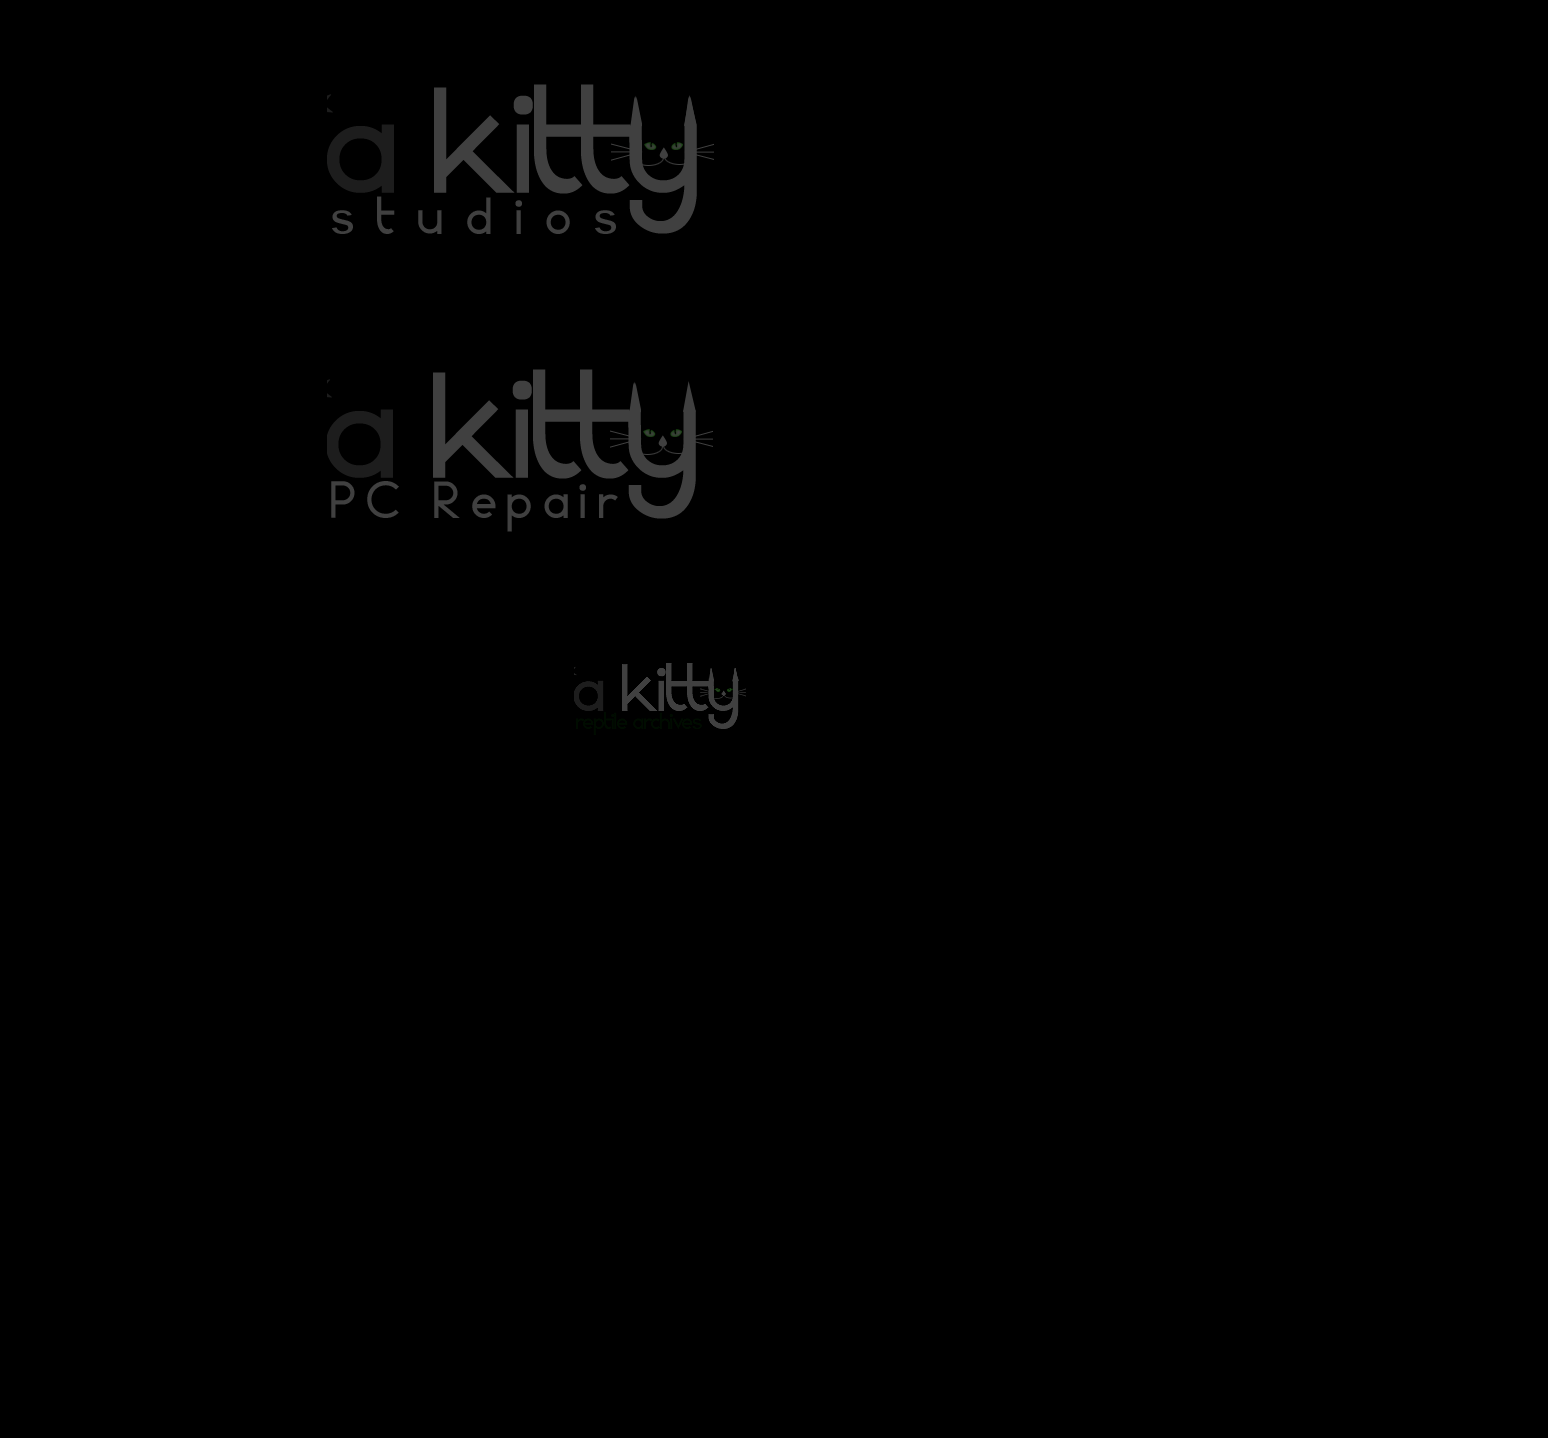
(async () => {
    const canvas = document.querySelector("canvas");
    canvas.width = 1548;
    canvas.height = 1438;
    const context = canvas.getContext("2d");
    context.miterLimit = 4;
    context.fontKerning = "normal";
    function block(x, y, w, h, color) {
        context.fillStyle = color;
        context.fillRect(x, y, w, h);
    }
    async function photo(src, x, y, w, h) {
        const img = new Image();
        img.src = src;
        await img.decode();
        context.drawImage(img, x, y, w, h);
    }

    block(0, 0, 1548, 1438, "rgb(0, 0, 0)");
    await photo("media/1.png", 327, 84, 387, 150);
    await photo("media/2.png", 327, 369, 386, 163);
    await photo("media/3.png", 574, 663, 172, 72);
})();
